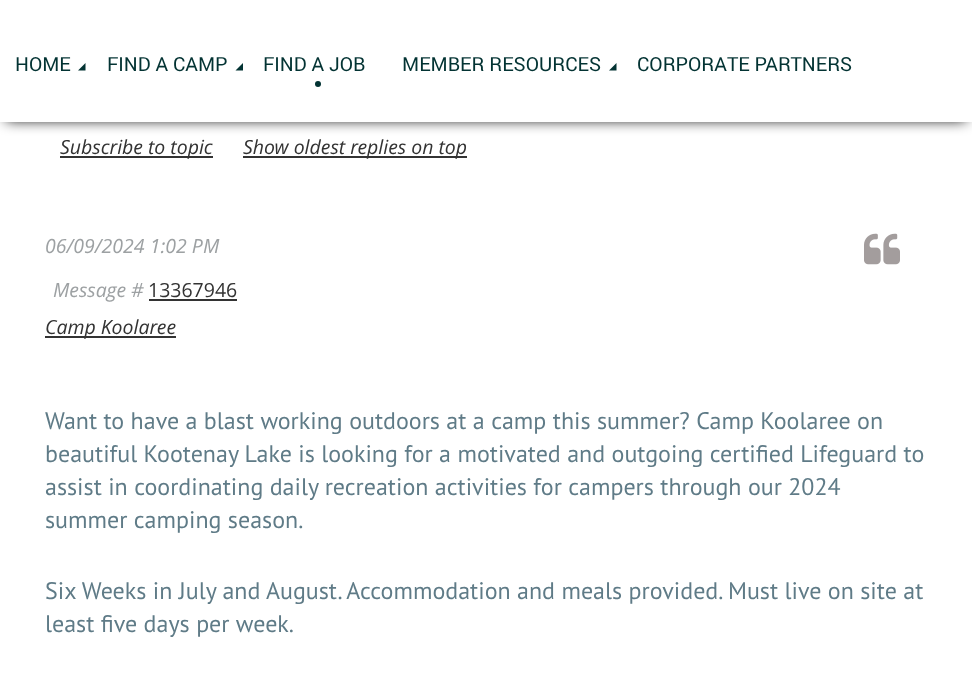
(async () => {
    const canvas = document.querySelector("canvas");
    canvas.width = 972;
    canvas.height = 678;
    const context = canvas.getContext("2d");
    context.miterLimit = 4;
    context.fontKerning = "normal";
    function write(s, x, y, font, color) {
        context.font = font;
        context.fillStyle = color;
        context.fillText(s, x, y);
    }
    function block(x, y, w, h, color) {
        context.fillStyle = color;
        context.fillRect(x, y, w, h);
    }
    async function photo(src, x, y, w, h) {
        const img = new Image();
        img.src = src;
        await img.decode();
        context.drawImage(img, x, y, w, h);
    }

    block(0, 0, 972, 678, "rgb(255, 255, 255)");
    context.fillStyle = "rgb(0, 0, 0)";
    context.filter = "blur(7px)";
    context.beginPath();
    context.rect(6, 11, 960, 109);
    context.fill();
    context.filter = "none";
    block(0, 0, 972, 122, "rgb(255, 255, 255)");
    write("HOME", 15, 71, "19.5px Roboto", "rgb(3, 51, 51)");
    context.beginPath();
    context.moveTo(85.5, 70.5);
    context.lineTo(78, 70.5);
    context.lineTo(85.5, 63);
    context.closePath();
    context.fill();
    write("FIND A CAMP", 107, 71, "19.5px Roboto", "rgb(3, 51, 51)");
    context.beginPath();
    context.moveTo(243, 70.5);
    context.lineTo(235.5, 70.5);
    context.lineTo(243, 63);
    context.closePath();
    context.fill();
    write("FIND A JOB", 263, 71, "19.5px Roboto", "rgb(3, 51, 51)");
    context.beginPath();
    context.arc(318, 84, 3, 0, Math.PI * 2);
    context.fill();
    write("MEMBER RESOURCES", 402, 71, "19.5px Roboto", "rgb(3, 51, 51)");
    context.beginPath();
    context.moveTo(616.5, 70.5);
    context.lineTo(609, 70.5);
    context.lineTo(616.5, 63);
    context.closePath();
    context.fill();
    write("CORPORATE PARTNERS", 637, 71, "19.5px Roboto", "rgb(3, 51, 51)");
    block(60, 156, 153, 2, "rgb(51, 51, 51)");
    write("Subscribe to topic", 60, 154, "italic 19.5px Open Sans", "rgb(51, 51, 51)");
    block(243, 156, 224, 2, "rgb(51, 51, 51)");
    write("Show oldest replies on top", 243, 154, "italic 19.5px Open Sans", "rgb(51, 51, 51)");
    write("06/09/2024 1:02 PM", 45, 253, "italic 19.5px Open Sans", "rgb(157, 161, 163)");
    await photo("media/1.png", 864, 233, 36, 32);
    write("Message #", 53, 297, "italic 19.5px Open Sans", "rgb(157, 161, 163)");
    write("13367946", 148, 297, "19.5px Open Sans", "rgb(51, 51, 51)");
    block(149, 299, 88, 2, "rgb(51, 51, 51)");
    block(45, 336, 131, 2, "rgb(51, 51, 51)");
    write("Camp Koolaree", 45, 334, "italic 19.5px Open Sans", "rgb(51, 51, 51)");
    write("Want to have a blast working outdoors at a camp this summer? Camp Koolaree on", 45, 429, "24px PT Sans", "rgb(95, 123, 135)");
    write("beautiful Kootenay Lake is looking for a motivated and outgoing certified Lifeguard to", 45, 462, "24px PT Sans", "rgb(95, 123, 135)");
    write("assist in coordinating daily recreation activities for campers through our 2024", 45, 495, "24px PT Sans", "rgb(95, 123, 135)");
    write("summer camping season.", 45, 528, "24px PT Sans", "rgb(95, 123, 135)");
    write("Six Weeks in July and August. Accommodation and meals provided. Must live on site at", 45, 599, "24px PT Sans", "rgb(95, 123, 135)");
    write("least five days per week.", 45, 632, "24px PT Sans", "rgb(95, 123, 135)");
})();
